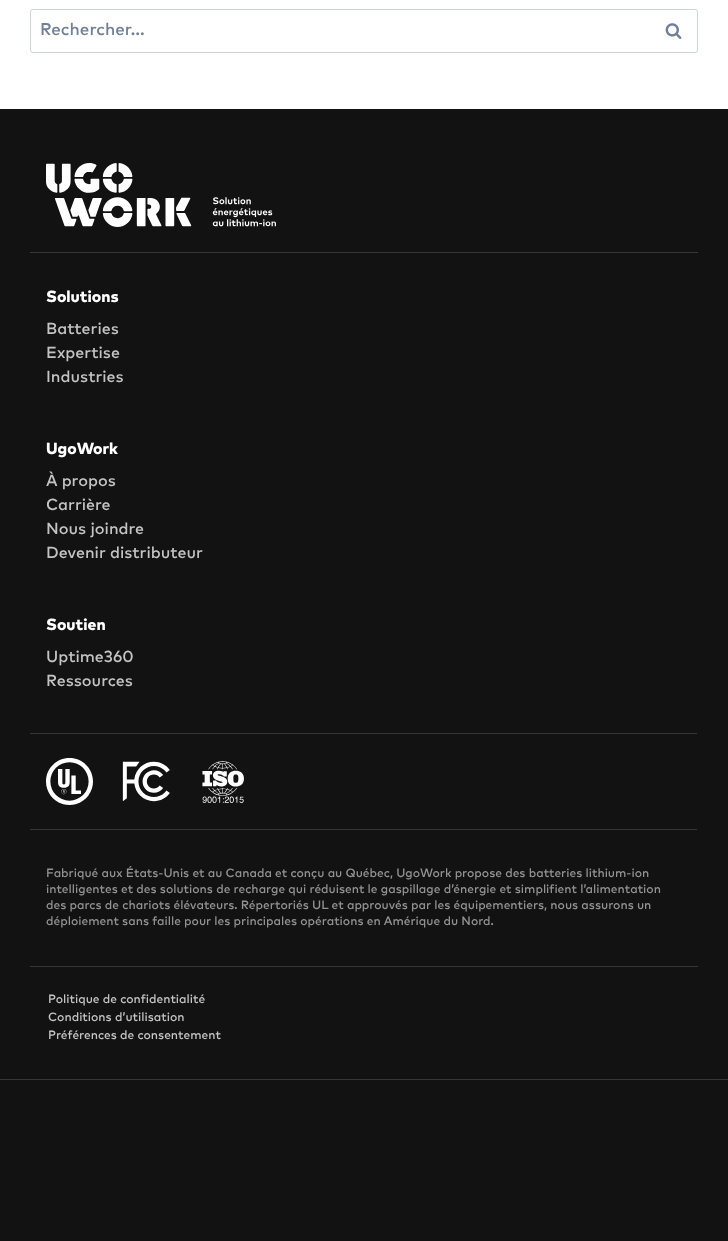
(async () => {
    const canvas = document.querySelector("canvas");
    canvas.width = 728;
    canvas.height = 1241;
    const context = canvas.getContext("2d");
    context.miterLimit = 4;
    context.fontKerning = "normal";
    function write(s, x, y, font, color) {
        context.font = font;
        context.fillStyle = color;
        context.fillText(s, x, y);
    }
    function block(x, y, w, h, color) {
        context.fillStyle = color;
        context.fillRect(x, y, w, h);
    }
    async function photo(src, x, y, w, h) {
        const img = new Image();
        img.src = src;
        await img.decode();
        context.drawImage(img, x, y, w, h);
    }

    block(0, 0, 728, 1241, "rgb(255, 255, 255)");
    context.beginPath();
    context.roundRect(30.5, 9.5, 667, 43, 2.5);
    context.strokeStyle = "rgb(203, 213, 224)";
    context.stroke();
    write("Rechercher…", 40, 35, "500 17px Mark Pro", "rgb(113, 128, 150)");
    await photo("media/1.png", 665, 23, 17, 16);
    block(0, 109, 728, 1132, "rgb(18, 18, 18)");
    block(30, 252, 668, 1, "rgb(54, 54, 54)");
    await photo("media/2.png", 46, 163, 230, 64);
    write("Solutions", 46, 302, "900 16px Mark Pro", "rgb(255, 255, 255)");
    write("Batteries", 46, 334, "500 16px Mark Pro", "rgb(195, 195, 195)");
    write("Expertise", 46, 358, "500 16px Mark Pro", "rgb(195, 195, 195)");
    write("Industries", 46, 382, "500 16px Mark Pro", "rgb(195, 195, 195)");
    write("UgoWork", 46, 454, "900 16px Mark Pro", "rgb(255, 255, 255)");
    write("À propos", 46, 486, "500 16px Mark Pro", "rgb(195, 195, 195)");
    write("Carrière", 46, 510, "500 16px Mark Pro", "rgb(195, 195, 195)");
    write("Nous joindre", 46, 534, "500 16px Mark Pro", "rgb(195, 195, 195)");
    write("Devenir distributeur", 46, 558, "500 16px Mark Pro", "rgb(195, 195, 195)");
    write("Soutien", 46, 630, "900 16px Mark Pro", "rgb(255, 255, 255)");
    write("Uptime360", 46, 662, "500 16px Mark Pro", "rgb(195, 195, 195)");
    write("Ressources", 46, 686, "500 16px Mark Pro", "rgb(195, 195, 195)");
    block(30, 733, 668, 1, "rgb(54, 54, 54)");
    block(697, 733, 1, 1, "rgb(18, 18, 18)");
    await photo("media/3.png", 46, 758, 198, 47);
    block(30, 829, 668, 1, "rgb(54, 54, 54)");
    block(697, 829, 1, 1, "rgb(18, 18, 18)");
    write("Fabriqué aux États-Unis et au Canada et conçu au Québec, UgoWork propose des batteries lithium-ion", 46, 877, "500 12px Mark Pro", "rgb(146, 146, 146)");
    write("intelligentes et des solutions de recharge qui réduisent le gaspillage d’énergie et simplifient l’alimentation", 46, 893, "500 12px Mark Pro", "rgb(146, 146, 146)");
    write("des parcs de chariots élévateurs. Répertoriés UL et approuvés par les équipementiers, nous assurons un", 46, 909, "500 12px Mark Pro", "rgb(146, 146, 146)");
    write("déploiement sans faille pour les principales opérations en Amérique du Nord.", 46, 925, "500 12px Mark Pro", "rgb(146, 146, 146)");
    block(30, 966, 668, 1, "rgb(54, 54, 54)");
    write("Politique de confidentialité", 48, 1003, "500 12px Mark Pro", "rgb(195, 195, 195)");
    write("Conditions d’utilisation", 48, 1021, "500 12px Mark Pro", "rgb(195, 195, 195)");
    write("Préférences de consentement", 48, 1039, "500 12px Mark Pro", "rgb(195, 195, 195)");
    block(0, 1079, 728, 1, "rgb(54, 54, 54)");
})();
